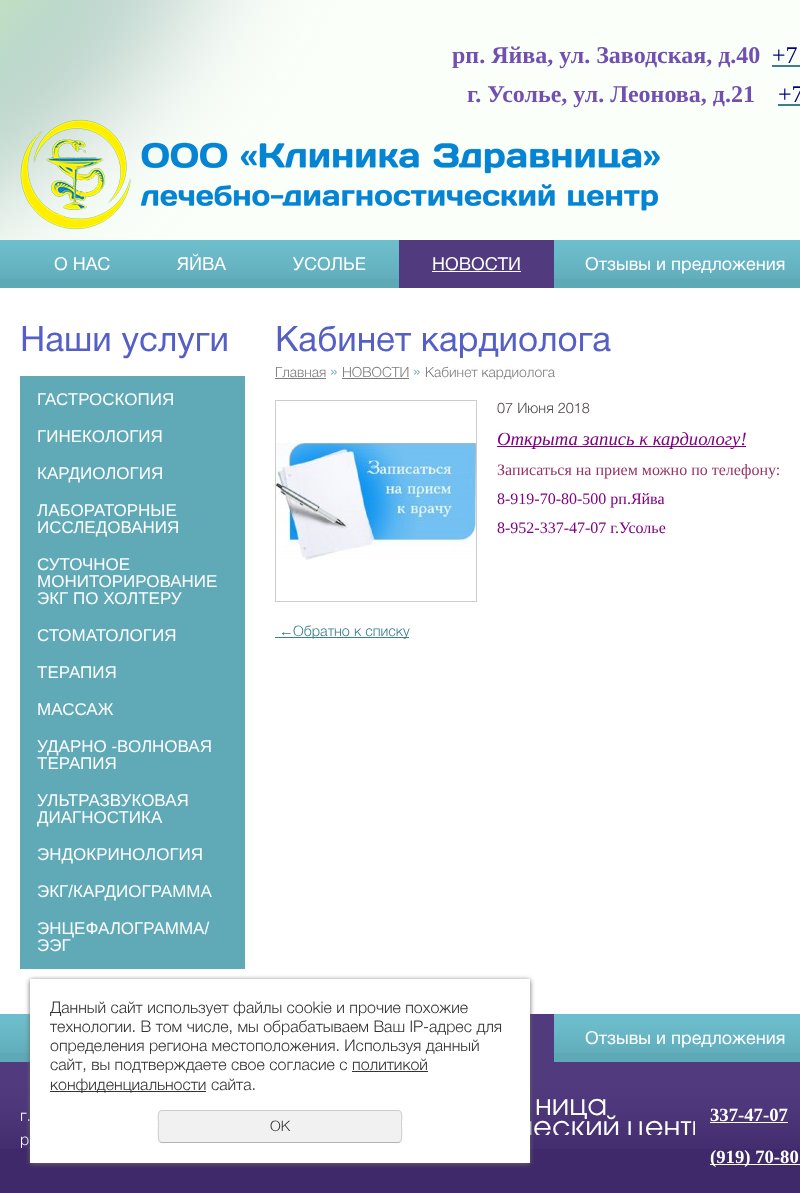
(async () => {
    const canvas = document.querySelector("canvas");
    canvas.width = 800;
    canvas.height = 1193;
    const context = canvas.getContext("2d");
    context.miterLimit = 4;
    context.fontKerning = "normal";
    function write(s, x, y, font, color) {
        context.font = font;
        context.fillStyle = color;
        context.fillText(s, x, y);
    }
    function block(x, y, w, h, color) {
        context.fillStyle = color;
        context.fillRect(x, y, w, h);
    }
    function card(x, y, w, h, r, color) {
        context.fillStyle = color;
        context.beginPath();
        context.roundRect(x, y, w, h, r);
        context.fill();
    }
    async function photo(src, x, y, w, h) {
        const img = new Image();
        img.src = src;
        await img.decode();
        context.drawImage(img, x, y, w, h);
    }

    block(0, 0, 800, 1193, "rgb(255, 255, 255)");
    await photo("media/1.png", 0, 0, 800, 240);
    write("рп. Яйва, ул. Заводская, д.40", 452, 63, "bold 24px Liberation Serif", "rgb(113, 80, 177)");
    write("+7", 772, 63, "24px Liberation Serif", "rgb(0, 0, 128)");
    block(772, 65, 28, 2, "rgb(58, 127, 140)");
    write("г. Усолье, ул. Леонова, д.21", 467, 102, "bold 24px Liberation Serif", "rgb(113, 80, 177)");
    write("+7", 778, 102, "24px Liberation Serif", "rgb(0, 0, 128)");
    block(778, 104, 22, 2, "rgb(58, 127, 140)");
    await photo("media/2.png", 20, 119, 640, 111);
    block(0, 279, 800, 9, "rgb(94, 169, 182)");
    await photo("media/3.png", 0, 240, 800, 39);
    write("О НАС", 54, 270, "18px 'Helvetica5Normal'", "rgb(255, 255, 255)");
    write("ЯЙВА", 177, 270, "18px 'Helvetica5Normal'", "rgb(255, 255, 255)");
    write("УСОЛЬЕ", 293, 270, "18px 'Helvetica5Normal'", "rgb(255, 255, 255)");
    block(399, 240, 155, 48, "rgb(81, 58, 126)");
    write("НОВОСТИ", 432, 270, "18px 'Helvetica5Normal'", "rgb(255, 255, 255)");
    block(432, 271, 89, 1, "rgb(255, 255, 255)");
    write("Отзывы и предложения", 585, 270, "18px 'Helvetica5Normal'", "rgb(255, 255, 255)");
    write("Наши услуги", 20, 351, "35px 'Helvetica5Normal'", "rgb(85, 95, 198)");
    block(20, 376, 225, 593, "rgb(96, 170, 184)");
    write("ГАСТРОСКОПИЯ", 37, 405, "17px Liberation Sans", "rgb(255, 255, 255)");
    write("ГИНЕКОЛОГИЯ", 37, 442, "17px Liberation Sans", "rgb(255, 255, 255)");
    write("КАРДИОЛОГИЯ", 37, 479, "17px Liberation Sans", "rgb(255, 255, 255)");
    write("ЛАБОРАТОРНЫЕ", 37, 516, "17px Liberation Sans", "rgb(255, 255, 255)");
    write("ИССЛЕДОВАНИЯ", 37, 533, "17px Liberation Sans", "rgb(255, 255, 255)");
    write("СУТОЧНОЕ", 37, 570, "17px Liberation Sans", "rgb(255, 255, 255)");
    write("МОНИТОРИРОВАНИЕ", 37, 587, "17px Liberation Sans", "rgb(255, 255, 255)");
    write("ЭКГ ПО ХОЛТЕРУ", 37, 604, "17px Liberation Sans", "rgb(255, 255, 255)");
    write("СТОМАТОЛОГИЯ", 37, 641, "17px Liberation Sans", "rgb(255, 255, 255)");
    write("ТЕРАПИЯ", 37, 678, "17px Liberation Sans", "rgb(255, 255, 255)");
    write("МАССАЖ", 37, 715, "17px Liberation Sans", "rgb(255, 255, 255)");
    write("УДАРНО -ВОЛНОВАЯ", 37, 752, "17px Liberation Sans", "rgb(255, 255, 255)");
    write("ТЕРАПИЯ", 37, 769, "17px Liberation Sans", "rgb(255, 255, 255)");
    write("УЛЬТРАЗВУКОВАЯ", 37, 806, "17px Liberation Sans", "rgb(255, 255, 255)");
    write("ДИАГНОСТИКА", 37, 823, "17px Liberation Sans", "rgb(255, 255, 255)");
    write("ЭНДОКРИНОЛОГИЯ", 37, 860, "17px Liberation Sans", "rgb(255, 255, 255)");
    write("ЭКГ/КАРДИОГРАММА", 37, 897, "17px Liberation Sans", "rgb(255, 255, 255)");
    write("ЭНЦЕФАЛОГРАММА/", 37, 934, "17px Liberation Sans", "rgb(255, 255, 255)");
    write("ЭЭГ", 37, 951, "17px Liberation Sans", "rgb(255, 255, 255)");
    context.save();
    context.beginPath();
    context.rect(275, 326, 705, 316);
    context.clip();
    write("Кабинет кардиолога", 275, 351, "35px 'Helvetica5Normal'", "rgb(85, 95, 198)");
    context.restore();
    write("Главная", 275, 377, "300 14px 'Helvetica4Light'", "rgb(125, 125, 125)");
    block(275, 378, 51, 1, "rgb(125, 125, 125)");
    write("»", 330, 377, "300 18px 'Helvetica4Light'", "rgb(96, 170, 184)");
    write("НОВОСТИ", 342, 377, "300 14px 'Helvetica4Light'", "rgb(125, 125, 125)");
    block(342, 378, 67, 1, "rgb(125, 125, 125)");
    write("»", 413, 377, "300 18px 'Helvetica4Light'", "rgb(96, 170, 184)");
    write("Кабинет кардиолога", 425, 377, "300 14px 'Helvetica4Light'", "rgb(125, 125, 125)");
    context.strokeStyle = "rgb(204, 204, 204)";
    context.strokeRect(275.5, 400.5, 201, 201);
    await photo("media/4.png", 276, 443, 200, 117);
    write("07 Июня 2018", 497, 413, "300 14.5px 'Helvetica4Light'", "rgb(79, 74, 74)");
    block(497, 446, 249, 1, "rgb(128, 0, 128)");
    write("Открыта запись к кардиологу!", 497, 445, "italic 18.7px Liberation Serif", "rgb(128, 0, 128)");
    write("Записаться на прием можно по телефону:", 497, 475, "16px Liberation Serif", "rgb(153, 51, 102)");
    write("8-919-70-80-500 рп.Яйва", 497, 504, "16px Liberation Serif", "rgb(128, 0, 128)");
    write("8-952-337-47-07 г.Усолье", 497, 533, "16px Liberation Serif", "rgb(128, 0, 128)");
    write("←", 279, 636, "14.5px Liberation Sans", "rgb(58, 127, 140)");
    block(275, 637, 134, 1, "rgb(58, 127, 140)");
    write("Обратно к списку", 293, 636, "300 14.5px 'Helvetica4Light'", "rgb(58, 127, 140)");
    block(0, 1149, 800, 44, "rgb(63, 41, 106)");
    await photo("media/5.png", 0, 1062, 800, 87);
    block(0, 1053, 800, 9, "rgb(94, 169, 182)");
    await photo("media/3.png", 0, 1014, 800, 39);
    block(530, 1014, 24, 48, "rgb(81, 58, 126)");
    write("Отзывы и предложения", 585, 1044, "18px 'Helvetica5Normal'", "rgb(255, 255, 255)");
    write("г.", 20, 1121, "300 16px 'Helvetica4Light'", "rgb(255, 255, 255)");
    write("р", 20, 1145, "300 16px 'Helvetica4Light'", "rgb(255, 255, 255)");
    write("ница", 535, 1115, "29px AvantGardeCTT", "rgb(255, 255, 255)");
    context.save();
    context.beginPath();
    context.rect(235, 1087, 460, 48);
    context.clip();
    write("ческий центр", 518, 1137, "29px AvantGardeCTT", "rgb(255, 255, 255)");
    context.restore();
    write("337-47-07", 710, 1121, "bold 18.7px Liberation Serif", "rgb(255, 255, 255)");
    block(710, 1122, 78, 1, "rgb(255, 255, 255)");
    block(710, 1164, 90, 1, "rgb(255, 255, 255)");
    write("(919) 70-80", 710, 1163, "bold 18.7px Liberation Serif", "rgb(255, 255, 255)");
    context.fillStyle = "rgb(102, 102, 102)";
    context.filter = "blur(2.5px)";
    context.beginPath();
    context.rect(30, 980, 500, 184);
    context.fill();
    context.filter = "none";
    block(30, 979, 500, 184, "rgb(255, 255, 255)");
    write("Данный сайт использует файлы cookie и прочие похожие", 50, 1013, "300 16px 'Helvetica4Light'", "rgb(51, 51, 51)");
    write("технологии. В том числе, мы обрабатываем Ваш IP-адрес для", 50, 1032, "300 16px 'Helvetica4Light'", "rgb(51, 51, 51)");
    write("определения региона местоположения. Используя данный", 50, 1051, "300 16px 'Helvetica4Light'", "rgb(51, 51, 51)");
    write("сайт, вы подтверждаете свое согласие с политикой", 50, 1070, "300 16px 'Helvetica4Light'", "rgb(51, 51, 51)");
    block(50, 1091, 156, 1, "rgb(51, 51, 51)");
    write("конфиденциальности сайта.", 50, 1090, "300 16px 'Helvetica4Light'", "rgb(51, 51, 51)");
    block(352, 1071, 76, 1, "rgb(51, 51, 51)");
    card(158, 1110, 244, 33, 4, "rgb(241, 241, 241)");
    context.beginPath();
    context.moveTo(400.5, 1141.5);
    context.bezierCurveTo(400, 1142, 399, 1142.5, 398, 1142.5);
    context.lineTo(162, 1142.5);
    context.bezierCurveTo(161, 1142.5, 160, 1142, 159.5, 1141.5);
    context.strokeStyle = "rgb(179, 179, 179)";
    context.stroke();
    context.beginPath();
    context.moveTo(159.5, 1141.5);
    context.bezierCurveTo(157.5, 1139, 158.5, 1125.5, 158.5, 1122.5);
    context.bezierCurveTo(158.5, 1120, 156.5, 1110.5, 162, 1110.5);
    context.lineTo(398, 1110.5);
    context.bezierCurveTo(403.5, 1110.5, 401.5, 1120, 401.5, 1122.5);
    context.bezierCurveTo(401.5, 1125.5, 402.5, 1139, 400.5, 1141.5);
    context.strokeStyle = "rgb(204, 204, 204)";
    context.stroke();
    write("OK", 270, 1131, "300 14.5px 'Helvetica4Light'", "rgb(51, 51, 51)");
})();
